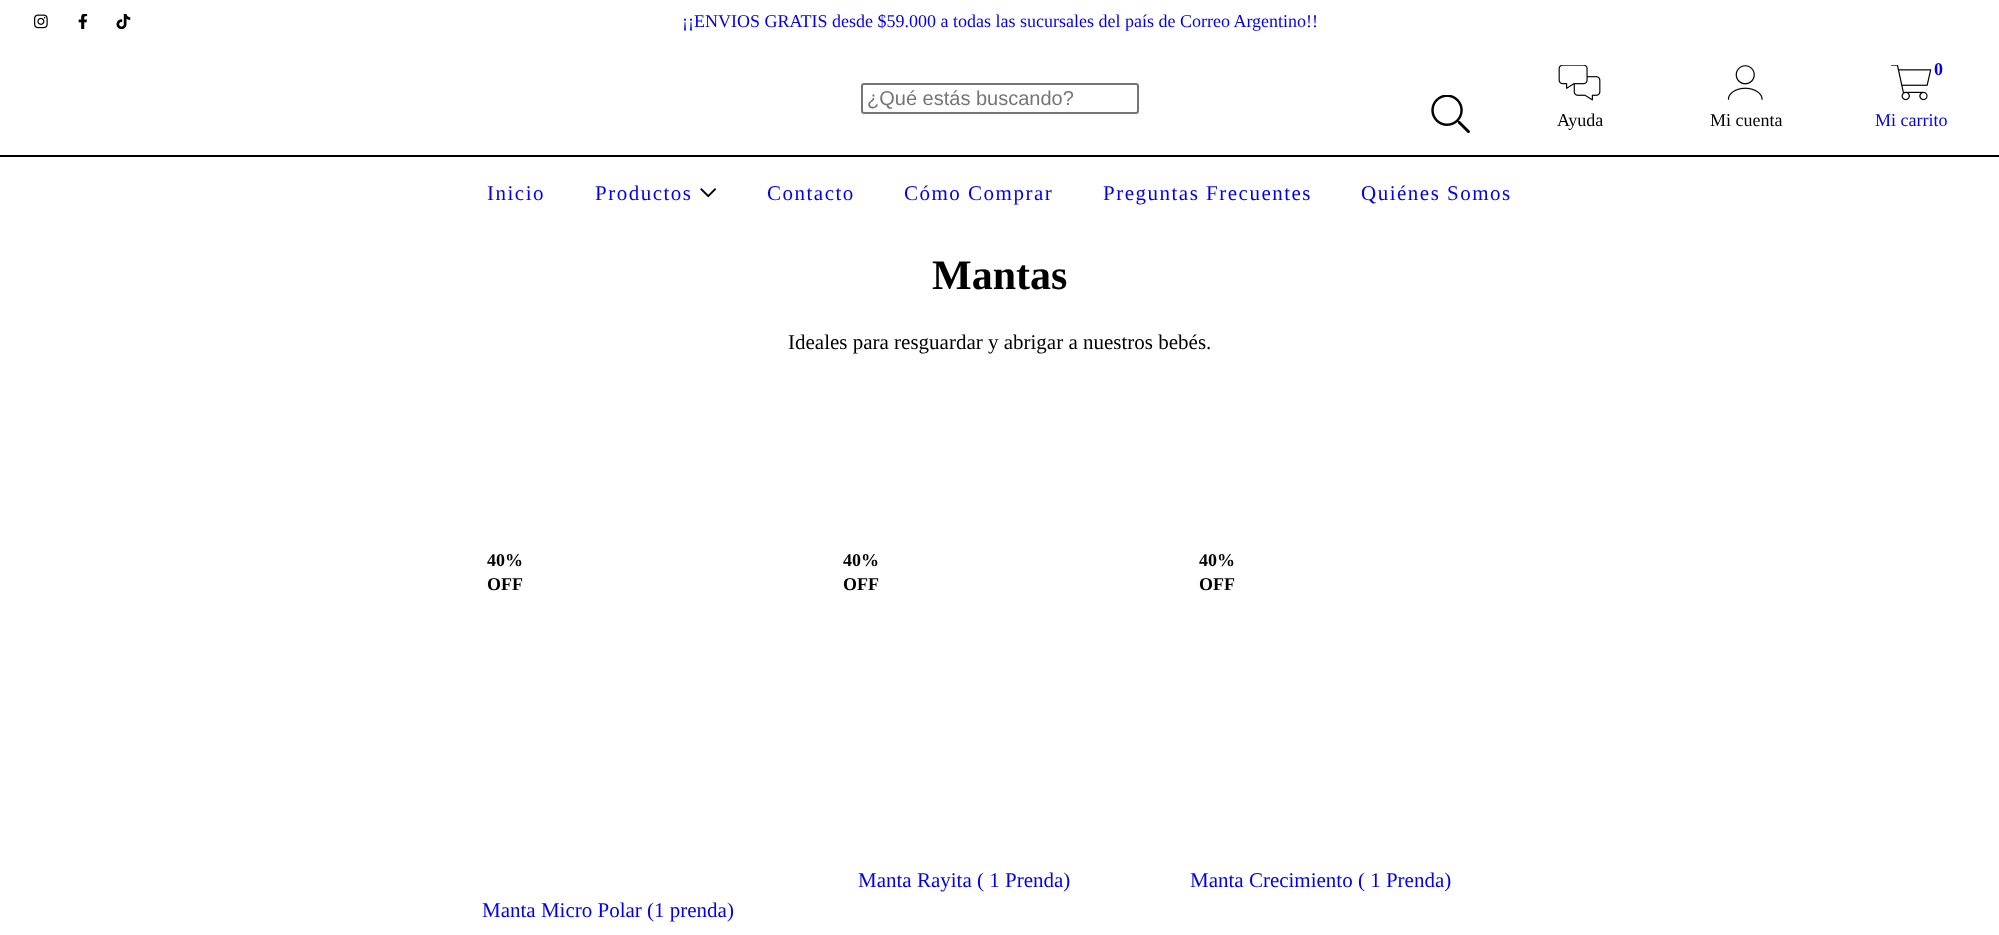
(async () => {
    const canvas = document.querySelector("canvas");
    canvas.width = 1999;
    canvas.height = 935;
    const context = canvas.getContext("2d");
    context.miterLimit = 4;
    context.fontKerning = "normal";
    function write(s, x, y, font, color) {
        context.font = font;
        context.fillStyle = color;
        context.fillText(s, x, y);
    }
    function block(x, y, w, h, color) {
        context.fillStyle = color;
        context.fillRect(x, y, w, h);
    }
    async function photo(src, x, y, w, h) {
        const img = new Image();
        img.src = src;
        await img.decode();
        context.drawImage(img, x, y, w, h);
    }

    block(0, 0, 1999, 935, "rgb(255, 255, 255)");
    await photo("media/1.png", 34, 14, 14, 15);
    await photo("media/2.png", 78, 14, 10, 15);
    await photo("media/3.png", 116, 14, 15, 15);
    write("¡¡ENVIOS GRATIS desde $59.000 a todas las sucursales del país de Correo Argentino!!", 682, 27, "18px Liberation Serif", "rgb(0, 0, 238)");
    context.beginPath();
    context.roundRect(862, 84, 276, 29, 2);
    context.strokeStyle = "rgb(118, 118, 118)";
    context.lineWidth = 2;
    context.stroke();
    write("¿Qué estás buscando?", 867, 105, "20px Liberation Sans", "rgb(117, 117, 117)");
    await photo("media/4.png", 1431, 95, 39, 39);
    await photo("media/5.png", 1558, 65, 43, 36);
    write("Ayuda", 1557, 126, "18px Liberation Serif", "rgb(0, 0, 0)");
    await photo("media/6.png", 1727, 65, 36, 35);
    write("Mi cuenta", 1710, 126, "18px Liberation Serif", "rgb(0, 0, 0)");
    await photo("media/7.png", 1890, 65, 42, 36);
    write("0", 1934, 75, "bold 18px Liberation Serif", "rgb(0, 0, 238)");
    write("Mi carrito", 1875, 126, "18px Liberation Serif", "rgb(0, 0, 238)");
    block(0, 155, 1999, 2, "rgb(0, 0, 0)");
    context.letterSpacing = "1.5px";
    write("Inicio", 487, 200, "21px Liberation Serif", "rgb(0, 0, 238)");
    write("Productos", 595, 200, "21px Liberation Serif", "rgb(0, 0, 238)");
    await photo("media/8.png", 700, 188, 17, 10);
    write("Contacto", 767, 200, "21px Liberation Serif", "rgb(0, 0, 238)");
    write("Cómo Comprar", 904, 200, "21px Liberation Serif", "rgb(0, 0, 238)");
    write("Preguntas Frecuentes", 1103, 200, "21px Liberation Serif", "rgb(0, 0, 238)");
    write("Quiénes Somos", 1361, 200, "21px Liberation Serif", "rgb(0, 0, 238)");
    context.letterSpacing = "0px";
    write("Mantas", 932, 289, "bold 42px Liberation Serif", "rgb(0, 0, 0)");
    write("Ideales para resguardar y abrigar a nuestros bebés.", 788, 349, "21px Liberation Serif", "rgb(0, 0, 0)");
    write("40%", 487, 566, "bold 18px Liberation Serif", "rgb(0, 0, 0)");
    write("OFF", 487, 590, "bold 18px Liberation Serif", "rgb(0, 0, 0)");
    write("Manta Micro Polar (1 prenda)", 482, 917, "21px Liberation Serif", "rgb(0, 0, 238)");
    write("40%", 843, 566, "bold 18px Liberation Serif", "rgb(0, 0, 0)");
    write("OFF", 843, 590, "bold 18px Liberation Serif", "rgb(0, 0, 0)");
    write("Manta Rayita ( 1 Prenda)", 858, 887, "21px Liberation Serif", "rgb(0, 0, 238)");
    write("40%", 1199, 566, "bold 18px Liberation Serif", "rgb(0, 0, 0)");
    write("OFF", 1199, 590, "bold 18px Liberation Serif", "rgb(0, 0, 0)");
    write("Manta Crecimiento ( 1 Prenda)", 1190, 887, "21px Liberation Serif", "rgb(0, 0, 238)");
})();
